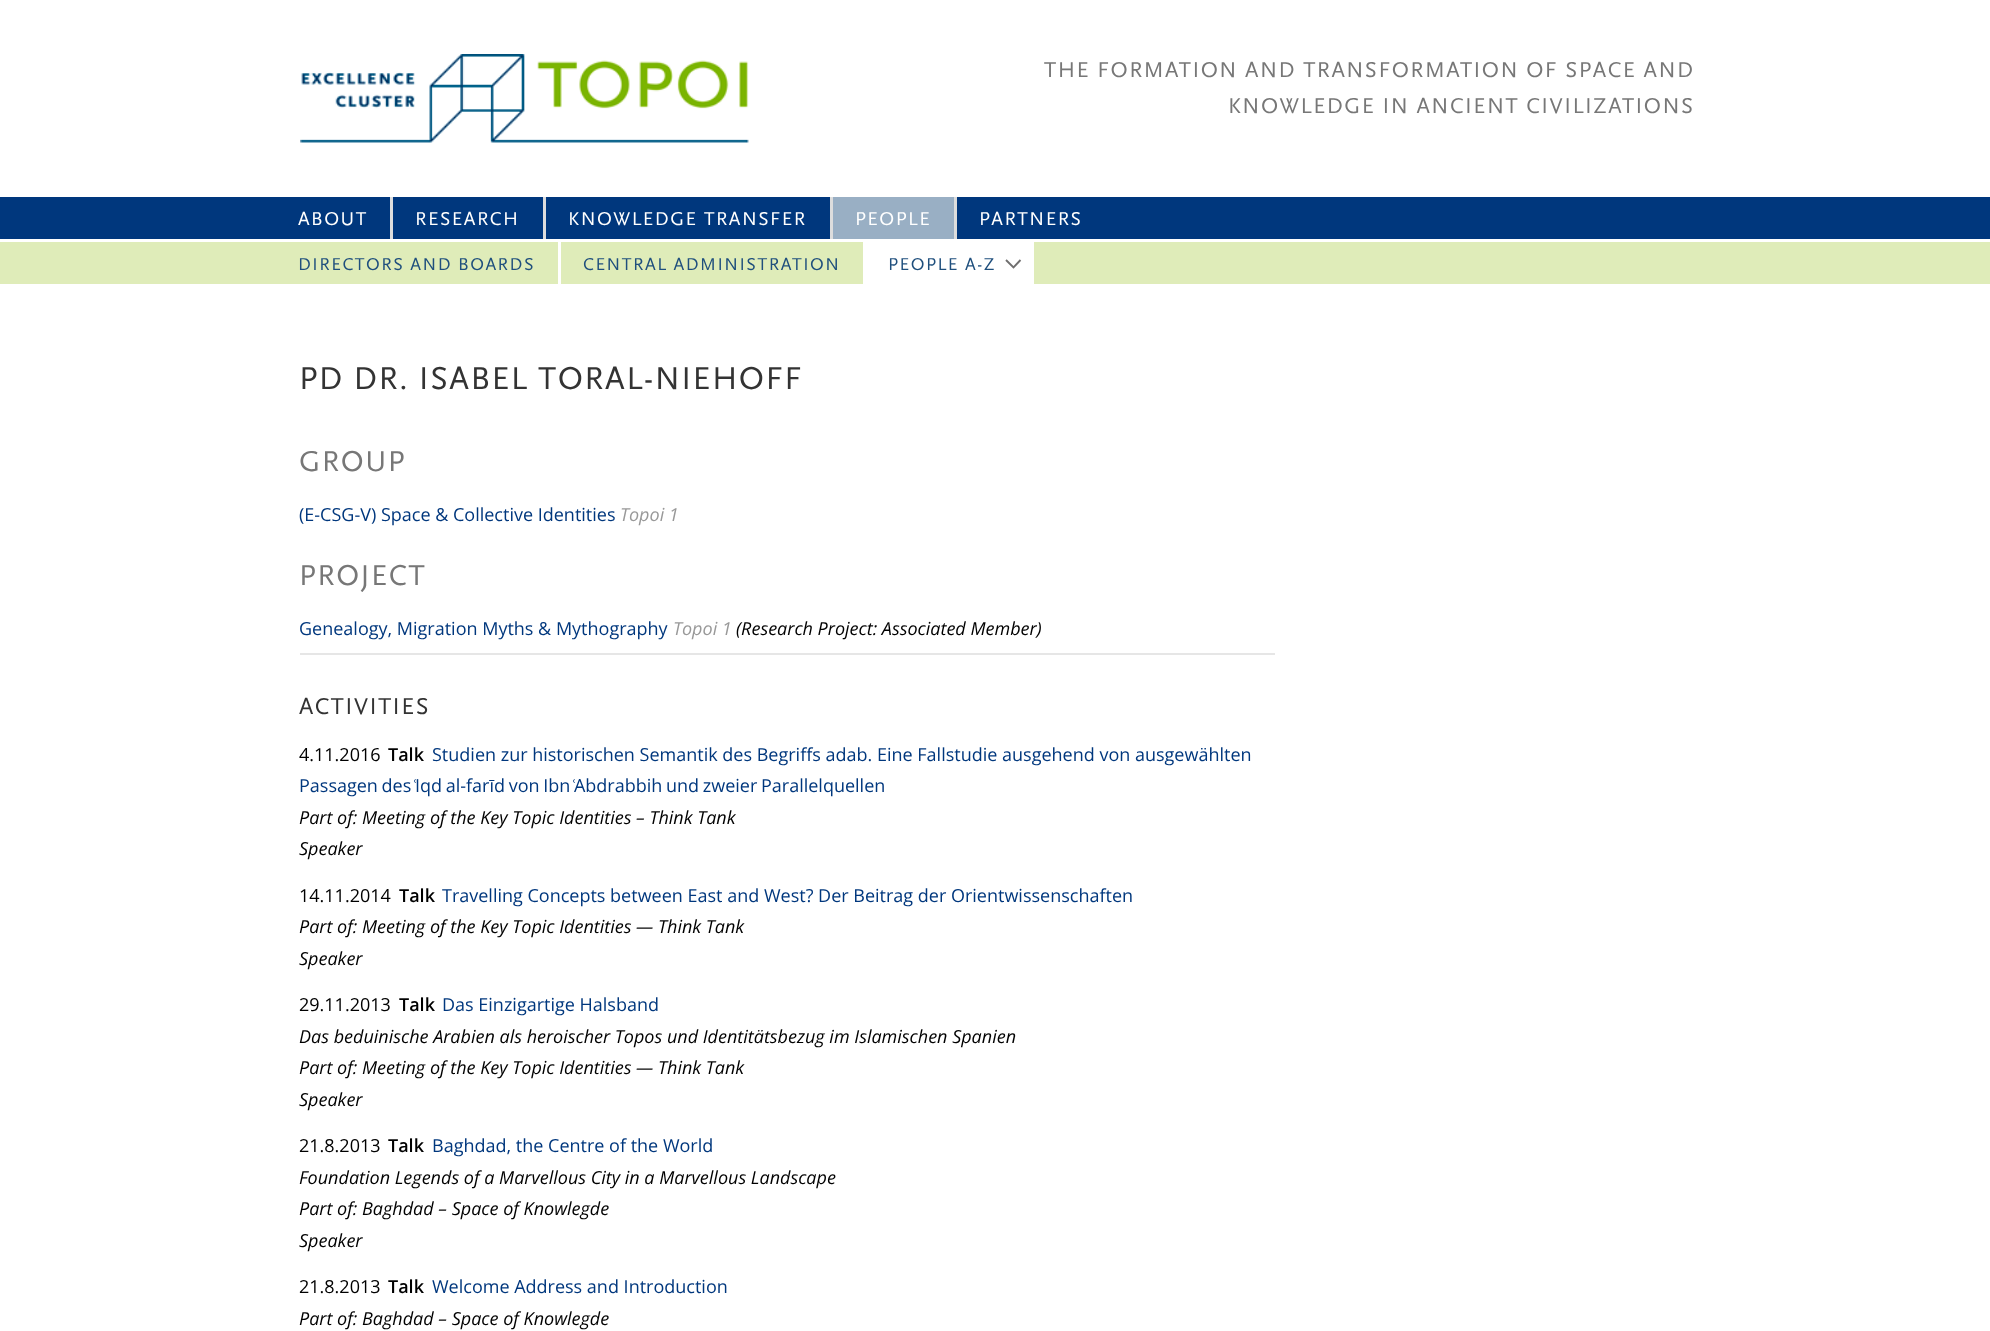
(async () => {
    const canvas = document.querySelector("canvas");
    canvas.width = 1990;
    canvas.height = 1331;
    const context = canvas.getContext("2d");
    context.miterLimit = 4;
    context.fontKerning = "normal";
    function write(s, x, y, font, color) {
        context.font = font;
        context.fillStyle = color;
        context.fillText(s, x, y);
    }
    function block(x, y, w, h, color) {
        context.fillStyle = color;
        context.fillRect(x, y, w, h);
    }
    async function photo(src, x, y, w, h) {
        const img = new Image();
        img.src = src;
        await img.decode();
        context.drawImage(img, x, y, w, h);
    }

    block(0, 0, 1990, 1331, "rgb(255, 255, 255)");
    await photo("media/1.png", 300, 54, 449, 89);
    context.letterSpacing = "1.5px";
    write("THE FORMATION AND TRANSFORMATION OF SPACE AND", 1044, 77, "22.5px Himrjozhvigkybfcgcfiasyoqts", "rgb(119, 119, 119)");
    write("KNOWLEDGE IN ANCIENT CIVILIZATIONS", 1228, 113, "22.5px Himrjozhvigkybfcgcfiasyoqts", "rgb(119, 119, 119)");
    block(0, 197, 1990, 42, "rgb(0, 55, 125)");
    write("ABOUT", 298, 225, "19.5px Himrjozhvigkybfcgcfiasyoqts", "rgb(255, 255, 255)");
    block(833, 197, 121, 42, "rgb(153, 175, 196)");
    block(830, 197, 3, 42, "rgb(221, 221, 221)");
    write("PEOPLE", 855, 225, "19.5px Himrjozhvigkybfcgcfiasyoqts", "rgb(255, 255, 255)");
    block(0, 242, 1990, 42, "rgb(223, 236, 185)");
    write("DIRECTORS AND BOARDS", 298, 270, "18px Himrjozhvigkybfcgcfiasyoqts", "rgb(31, 79, 125)");
    block(558, 242, 3, 42, "rgb(255, 255, 255)");
    write("CENTRAL ADMINISTRATION", 583, 270, "18px Himrjozhvigkybfcgcfiasyoqts", "rgb(31, 79, 125)");
    block(863, 242, 171, 42, "rgb(255, 255, 255)");
    write("PEOPLE A-Z", 888, 270, "18px Himrjozhvigkybfcgcfiasyoqts", "rgb(31, 79, 125)");
    context.beginPath();
    context.moveTo(1006, 260);
    context.lineTo(1013.5, 267.5);
    context.lineTo(1020.5, 260);
    context.strokeStyle = "rgb(112, 111, 111)";
    context.lineWidth = 1.9;
    context.stroke();
    block(390, 197, 3, 42, "rgb(221, 221, 221)");
    write("RESEARCH", 415, 225, "19.5px Himrjozhvigkybfcgcfiasyoqts", "rgb(255, 255, 255)");
    block(543, 197, 3, 42, "rgb(221, 221, 221)");
    write("KNOWLEDGE TRANSFER", 568, 225, "19.5px Himrjozhvigkybfcgcfiasyoqts", "rgb(255, 255, 255)");
    block(954, 197, 3, 42, "rgb(221, 221, 221)");
    write("PARTNERS", 979, 225, "19.5px Himrjozhvigkybfcgcfiasyoqts", "rgb(255, 255, 255)");
    write("PD DR. ISABEL TORAL-NIEHOFF", 299, 389, "33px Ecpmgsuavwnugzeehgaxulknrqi", "rgb(51, 51, 51)");
    write("GROUP", 299, 471, "30px Ecpmgsuavwnugzeehgaxulknrqi", "rgb(119, 119, 119)");
    context.letterSpacing = "0px";
    write("(E-CSG-V) Space & Collective Identities", 299, 521, "18px Open Sans", "rgb(0, 55, 125)");
    write("Topoi 1", 620, 521, "italic 18px Open Sans", "rgb(153, 153, 153)");
    context.letterSpacing = "1.5px";
    write("PROJECT", 299, 585, "30px Ecpmgsuavwnugzeehgaxulknrqi", "rgb(119, 119, 119)");
    context.letterSpacing = "0px";
    write("Genealogy, Migration Myths & Mythography", 299, 635, "18px Open Sans", "rgb(0, 55, 125)");
    write("Topoi 1", 673, 635, "italic 18px Open Sans", "rgb(153, 153, 153)");
    write("(Research Project: Associated Member)", 736, 635, "italic 18px Open Sans", "rgb(0, 0, 0)");
    block(300, 653, 975, 2, "rgb(230, 230, 230)");
    context.letterSpacing = "1.5px";
    write("ACTIVITIES", 299, 714, "24px Ecpmgsuavwnugzeehgaxulknrqi", "rgb(51, 51, 51)");
    context.letterSpacing = "0px";
    write("4.11.2016", 299, 761, "18px Open Sans", "rgb(0, 0, 0)");
    write("Talk", 388, 761, "600 18px Open Sans", "rgb(0, 0, 0)");
    write("Studien zur historischen Semantik des Begriffs adab. Eine Fallstudie ausgehend von ausgewählten", 432, 761, "18px Open Sans", "rgb(0, 55, 125)");
    context.wordSpacing = "-1px";
    write("Passagen des ͑Iqd al-farīd von Ibn ͑Abdrabbih und zweier Parallelquellen", 299, 792, "18px Open Sans", "rgb(0, 55, 125)");
    context.wordSpacing = "0px";
    write("Part of: Meeting of the Key Topic Identities – Think Tank", 299, 824, "italic 18px Open Sans", "rgb(0, 0, 0)");
    write("Speaker", 299, 855, "italic 18px Open Sans", "rgb(0, 0, 0)");
    write("14.11.2014", 299, 902, "18px Open Sans", "rgb(0, 0, 0)");
    write("Talk", 399, 902, "600 18px Open Sans", "rgb(0, 0, 0)");
    write("Travelling Concepts between East and West? Der Beitrag der Orientwissenschaften", 442, 902, "18px Open Sans", "rgb(0, 55, 125)");
    write("Part of: Meeting of the Key Topic Identities — Think Tank", 299, 933, "italic 18px Open Sans", "rgb(0, 0, 0)");
    write("Speaker", 299, 965, "italic 18px Open Sans", "rgb(0, 0, 0)");
    write("29.11.2013", 299, 1011, "18px Open Sans", "rgb(0, 0, 0)");
    write("Talk", 399, 1011, "600 18px Open Sans", "rgb(0, 0, 0)");
    write("Das Einzigartige Halsband", 442, 1011, "18px Open Sans", "rgb(0, 55, 125)");
    write("Das beduinische Arabien als heroischer Topos und Identitätsbezug im Islamischen Spanien", 299, 1043, "italic 18px Open Sans", "rgb(0, 0, 0)");
    write("Part of: Meeting of the Key Topic Identities — Think Tank", 299, 1074, "italic 18px Open Sans", "rgb(0, 0, 0)");
    write("Speaker", 299, 1106, "italic 18px Open Sans", "rgb(0, 0, 0)");
    write("21.8.2013", 299, 1152, "18px Open Sans", "rgb(0, 0, 0)");
    write("Talk", 388, 1152, "600 18px Open Sans", "rgb(0, 0, 0)");
    write("Baghdad, the Centre of the World", 432, 1152, "18px Open Sans", "rgb(0, 55, 125)");
    write("Foundation Legends of a Marvellous City in a Marvellous Landscape", 299, 1184, "italic 18px Open Sans", "rgb(0, 0, 0)");
    write("Part of: Baghdad – Space of Knowlegde", 299, 1215, "italic 18px Open Sans", "rgb(0, 0, 0)");
    write("Speaker", 299, 1247, "italic 18px Open Sans", "rgb(0, 0, 0)");
    write("21.8.2013", 299, 1293, "18px Open Sans", "rgb(0, 0, 0)");
    write("Talk", 388, 1293, "600 18px Open Sans", "rgb(0, 0, 0)");
    write("Welcome Address and Introduction", 432, 1293, "18px Open Sans", "rgb(0, 55, 125)");
    write("Part of: Baghdad – Space of Knowlegde", 299, 1325, "italic 18px Open Sans", "rgb(0, 0, 0)");
})();
